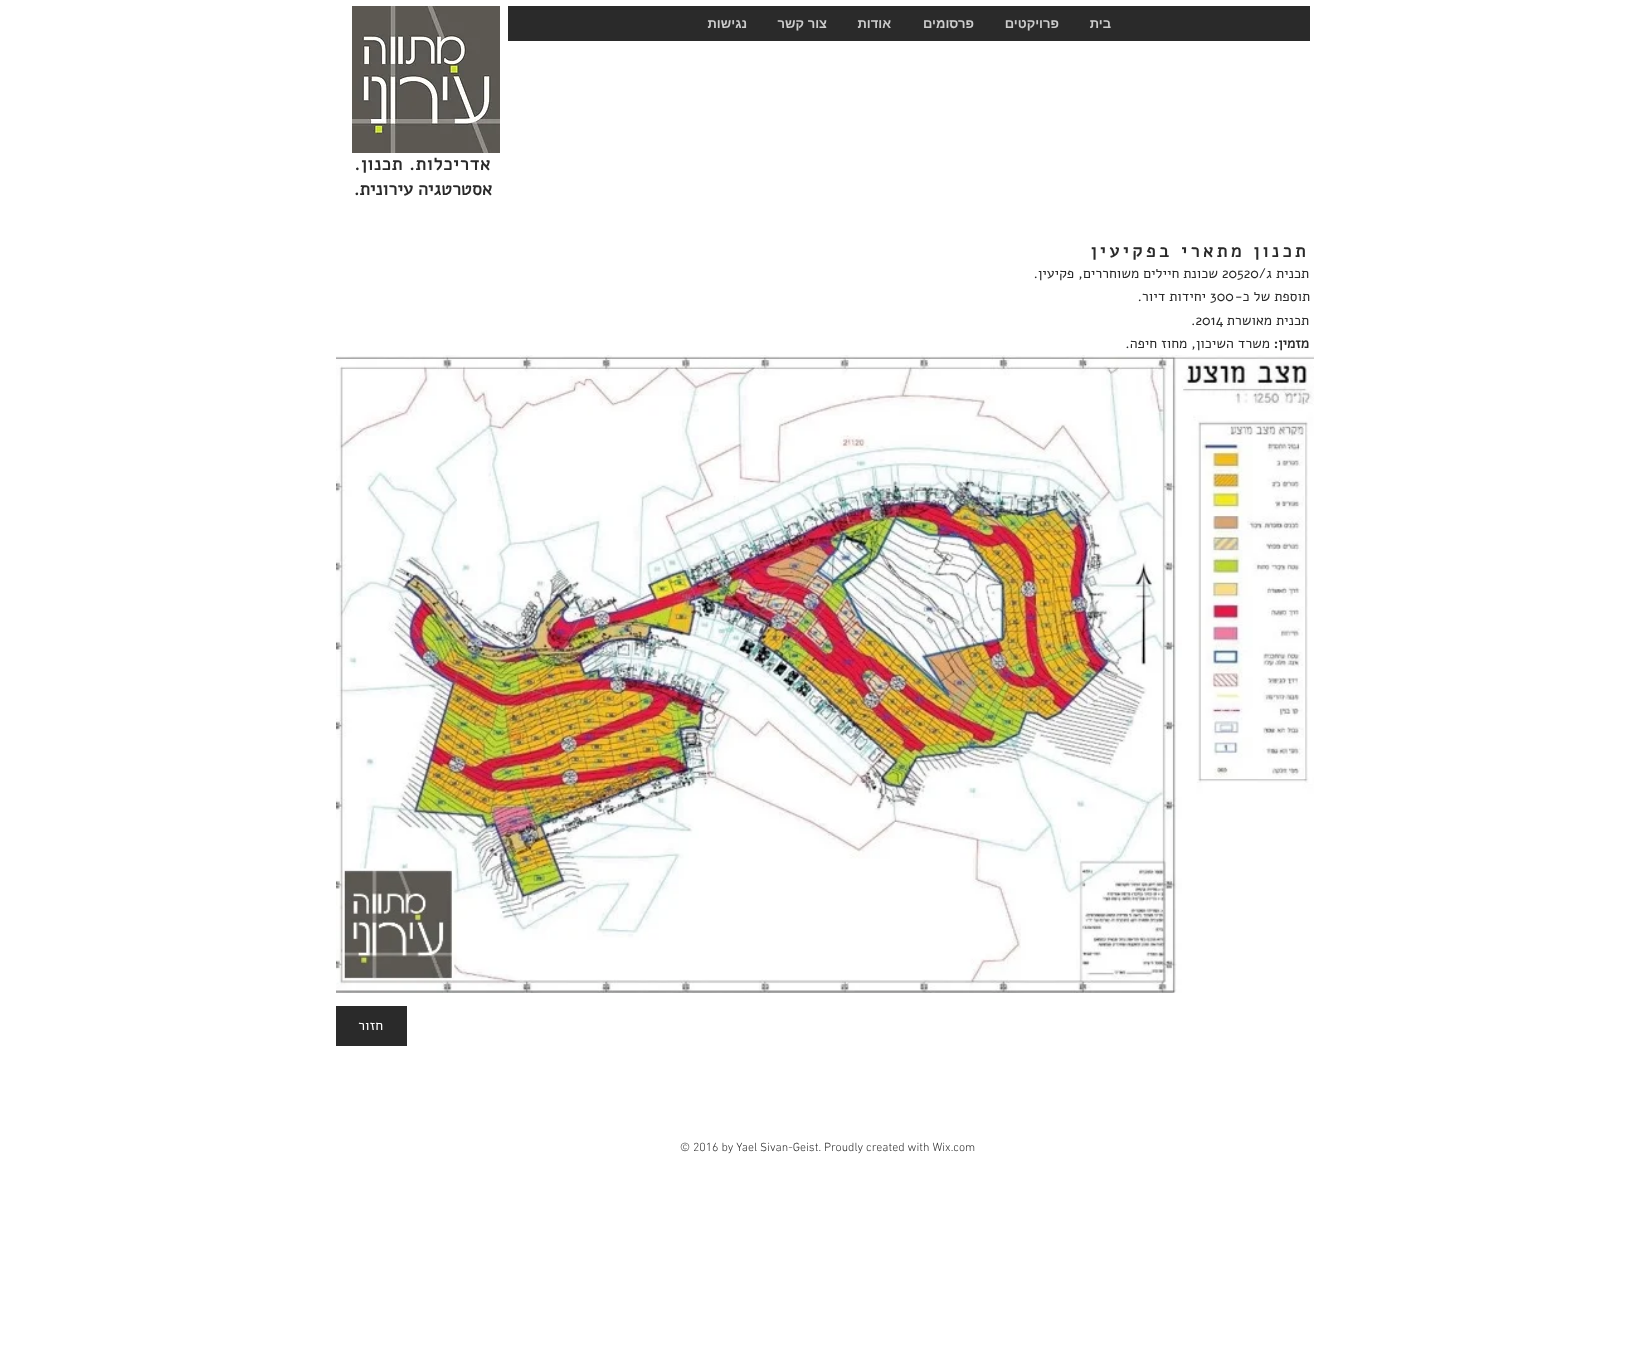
(async () => {
    const canvas = document.querySelector("canvas");
    canvas.width = 1651;
    canvas.height = 1352;
    const context = canvas.getContext("2d");
    context.miterLimit = 4;
    context.fontKerning = "normal";
    function write(s, x, y, font, color) {
        context.font = font;
        context.fillStyle = color;
        context.fillText(s, x, y);
    }
    function block(x, y, w, h, color) {
        context.fillStyle = color;
        context.fillRect(x, y, w, h);
    }
    async function photo(src, x, y, w, h) {
        const img = new Image();
        img.src = src;
        await img.decode();
        context.drawImage(img, x, y, w, h);
    }

    block(0, 0, 1651, 1352, "rgb(255, 255, 255)");
    block(508, 6, 802, 35, "rgb(42, 42, 42)");
    context.direction = "rtl";
    write("בית", 1111, 28, "bold 13px Liberation Sans", "rgb(204, 204, 204)");
    write("פרויקטים", 1059, 28, "bold 13px Liberation Sans", "rgb(204, 204, 204)");
    write("פרסומים", 974, 28, "bold 13px Liberation Sans", "rgb(204, 204, 204)");
    write("אודות", 891, 28, "bold 13px Liberation Sans", "rgb(204, 204, 204)");
    write("צור קשר", 827, 28, "bold 13px Liberation Sans", "rgb(204, 204, 204)");
    write("נגישות", 747, 28, "bold 13px Liberation Sans", "rgb(204, 204, 204)");
    await photo("media/1.png", 352, 6, 148, 147);
    context.letterSpacing = "0.9px";
    write("אדריכלות. תכנון.", 491, 170, "bold 18px Alef", "rgb(42, 42, 42)");
    context.letterSpacing = "0px";
    write("אסטרטגיה עירונית.", 492, 195, "bold 18px Alef", "rgb(42, 42, 42)");
    context.letterSpacing = "3.6px";
    write("תכנון מתארי בפקיעין", 1309, 257, "bold 18px Alef", "rgb(42, 42, 42)");
    context.letterSpacing = "0px";
    write("תכנית ג/", 1309, 278, "14px Alef", "rgb(42, 42, 42)");
    context.direction = "ltr";
    write("20520", 1222, 278, "14px Alef", "rgb(42, 42, 42)");
    context.direction = "rtl";
    write("שכונת חיילים משוחררים, פקיעין.", 1218, 278, "14px Alef", "rgb(42, 42, 42)");
    write("תוספת של כ-", 1310, 301, "14px Alef", "rgb(42, 42, 42)");
    context.direction = "ltr";
    write("300", 1210, 301, "14px Alef", "rgb(42, 42, 42)");
    context.direction = "rtl";
    write("יחידות דיור.", 1206, 301, "14px Alef", "rgb(42, 42, 42)");
    write("תכנית מאושרת", 1309, 325, "14px Alef", "rgb(42, 42, 42)");
    context.direction = "ltr";
    write(".2014", 1191, 325, "14px Alef", "rgb(42, 42, 42)");
    context.direction = "rtl";
    write("מזמין:", 1309, 348, "bold 14px Alef", "rgb(42, 42, 42)");
    write("משרד השיכון, מחוז חיפה.", 1270, 348, "14px Alef", "rgb(42, 42, 42)");
    await photo("media/2.png", 336, 355, 978, 638);
    block(336, 1006, 71, 40, "rgb(42, 42, 42)");
    write("חזור", 383, 1030, "14px Alef", "rgb(255, 255, 255)");
    context.direction = "ltr";
    write("© 2016 by Yael Sivan-Geist. Proudly created with Wix.com", 680, 1151, "300 12px 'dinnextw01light'", "rgb(42, 42, 42)");
})();
